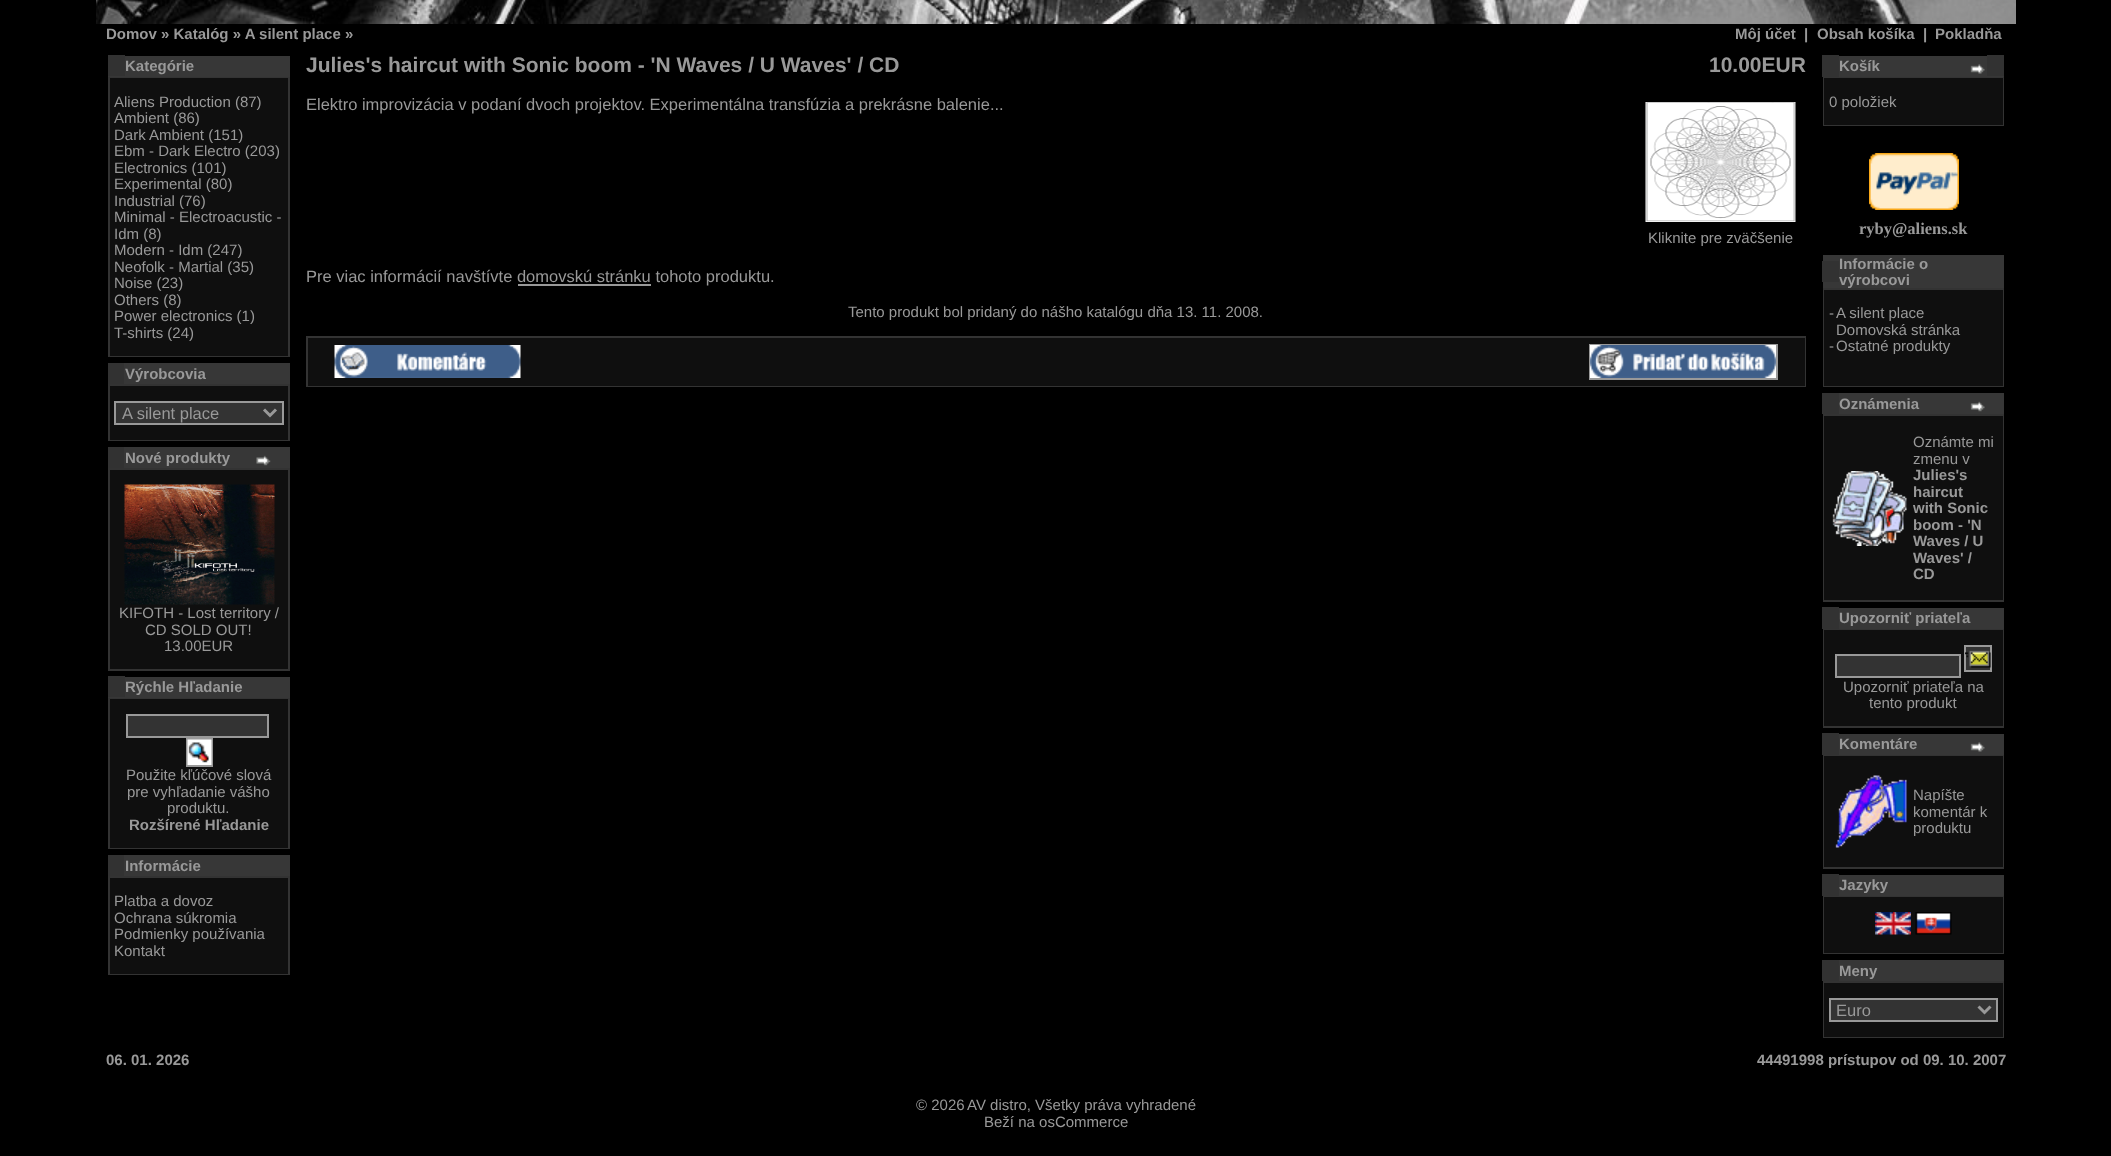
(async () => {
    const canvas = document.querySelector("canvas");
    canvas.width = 2111;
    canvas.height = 1156;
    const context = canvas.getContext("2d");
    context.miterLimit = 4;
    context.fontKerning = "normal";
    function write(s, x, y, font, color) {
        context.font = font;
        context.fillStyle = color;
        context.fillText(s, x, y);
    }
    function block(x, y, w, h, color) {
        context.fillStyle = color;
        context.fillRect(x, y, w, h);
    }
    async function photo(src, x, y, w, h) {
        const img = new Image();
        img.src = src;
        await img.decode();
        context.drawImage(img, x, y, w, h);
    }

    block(0, 0, 2111, 1156, "rgb(0, 0, 0)");
    await photo("media/1.png", 96, 0, 1920, 24);
    write("Domov » Katalóg » A silent place »", 106, 39, "bold 15px Liberation Sans", "rgb(153, 153, 153)");
    write("Môj účet", 1735, 39, "bold 15px Liberation Sans", "rgb(153, 153, 153)");
    write("|", 1804, 39, "bold 15px Liberation Sans", "rgb(153, 153, 153)");
    write("Obsah košíka", 1817, 39, "bold 15px Liberation Sans", "rgb(153, 153, 153)");
    write("|", 1923, 39, "bold 15px Liberation Sans", "rgb(153, 153, 153)");
    write("Pokladňa", 1935, 39, "bold 15px Liberation Sans", "rgb(153, 153, 153)");
    block(108, 76, 17, 1, "rgb(55, 55, 55)");
    block(108, 55, 17, 21, "rgb(50, 50, 50)");
    block(125, 56, 165, 21, "rgb(55, 55, 55)");
    write("Kategórie", 125, 71, "bold 15px Liberation Sans", "rgb(153, 153, 153)");
    block(108, 77, 182, 280, "rgb(51, 51, 51)");
    block(110, 78, 178, 278, "rgb(15, 15, 15)");
    write("Aliens Production (87)", 114, 107, "15px Liberation Sans", "rgb(153, 153, 153)");
    write("Ambient (86)", 114, 123, "15px Liberation Sans", "rgb(153, 153, 153)");
    write("Dark Ambient (151)", 114, 140, "15px Liberation Sans", "rgb(153, 153, 153)");
    write("Ebm - Dark Electro (203)", 114, 156, "15px Liberation Sans", "rgb(153, 153, 153)");
    write("Electronics (101)", 114, 173, "15px Liberation Sans", "rgb(153, 153, 153)");
    write("Experimental (80)", 114, 189, "15px Liberation Sans", "rgb(153, 153, 153)");
    write("Industrial (76)", 114, 206, "15px Liberation Sans", "rgb(153, 153, 153)");
    write("Minimal - Electroacustic -", 114, 222, "15px Liberation Sans", "rgb(153, 153, 153)");
    write("Idm (8)", 114, 239, "15px Liberation Sans", "rgb(153, 153, 153)");
    write("Modern - Idm (247)", 114, 255, "15px Liberation Sans", "rgb(153, 153, 153)");
    write("Neofolk - Martial (35)", 114, 272, "15px Liberation Sans", "rgb(153, 153, 153)");
    write("Noise (23)", 114, 288, "15px Liberation Sans", "rgb(153, 153, 153)");
    write("Others (8)", 114, 305, "15px Liberation Sans", "rgb(153, 153, 153)");
    write("Power electronics (1)", 114, 321, "15px Liberation Sans", "rgb(153, 153, 153)");
    write("T-shirts (24)", 114, 338, "15px Liberation Sans", "rgb(153, 153, 153)");
    block(124, 363, 166, 21, "rgb(55, 55, 55)");
    block(108, 363, 16, 21, "rgb(50, 50, 50)");
    write("Výrobcovia", 125, 379, "bold 15px Liberation Sans", "rgb(153, 153, 153)");
    block(108, 384, 182, 57, "rgb(51, 51, 51)");
    block(110, 386, 178, 54, "rgb(15, 15, 15)");
    context.fillStyle = "rgb(51, 51, 51)";
    context.beginPath();
    context.rect(115, 402, 168, 22);
    context.fill();
    context.strokeStyle = "rgb(153, 153, 153)";
    context.lineWidth = 2;
    context.stroke();
    context.beginPath();
    context.moveTo(264, 409.5);
    context.lineTo(270, 415.5);
    context.lineTo(276, 409.5);
    context.lineWidth = 3;
    context.stroke();
    write("A silent place", 122, 419, "16.5px Liberation Sans", "rgb(153, 153, 153)");
    block(124, 447, 166, 21, "rgb(55, 55, 55)");
    block(108, 447, 16, 21, "rgb(50, 50, 50)");
    write("Nové produkty", 125, 463, "bold 15px Liberation Sans", "rgb(153, 153, 153)");
    await photo("media/2.png", 256, 455, 15, 11);
    block(108, 468, 182, 203, "rgb(51, 51, 51)");
    block(110, 470, 178, 199, "rgb(15, 15, 15)");
    await photo("media/3.png", 124, 484, 151, 121);
    write("KIFOTH - Lost territory /", 119, 618, "15px Liberation Sans", "rgb(153, 153, 153)");
    write("CD SOLD OUT!", 145, 635, "15px Liberation Sans", "rgb(153, 153, 153)");
    write("13.00EUR", 164, 651, "15px Liberation Sans", "rgb(153, 153, 153)");
    block(108, 697, 17, 1, "rgb(55, 55, 55)");
    block(108, 676, 17, 21, "rgb(50, 50, 50)");
    block(125, 677, 165, 21, "rgb(55, 55, 55)");
    write("Rýchle Hľadanie", 125, 692, "bold 15px Liberation Sans", "rgb(153, 153, 153)");
    block(108, 698, 182, 151, "rgb(51, 51, 51)");
    block(110, 699, 178, 149, "rgb(15, 15, 15)");
    context.fillStyle = "rgb(51, 51, 51)";
    context.beginPath();
    context.rect(127, 715, 141, 22);
    context.fill();
    context.lineWidth = 2;
    context.stroke();
    context.strokeRect(187, 739, 25, 27);
    await photo("media/4.png", 187, 739, 25, 26);
    write("Použite kľúčové slová", 126, 780, "15px Liberation Sans", "rgb(153, 153, 153)");
    write("pre vyhľadanie vášho", 127, 797, "15px Liberation Sans", "rgb(153, 153, 153)");
    write("produktu.", 167, 813, "15px Liberation Sans", "rgb(153, 153, 153)");
    write("Rozšírené Hľadanie", 129, 830, "bold 15px Liberation Sans", "rgb(153, 153, 153)");
    block(124, 855, 166, 21, "rgb(55, 55, 55)");
    block(108, 855, 16, 21, "rgb(50, 50, 50)");
    write("Informácie", 125, 871, "bold 15px Liberation Sans", "rgb(153, 153, 153)");
    block(108, 876, 182, 99, "rgb(51, 51, 51)");
    block(110, 878, 178, 96, "rgb(15, 15, 15)");
    write("Platba a dovoz", 114, 906, "15px Liberation Sans", "rgb(153, 153, 153)");
    write("Ochrana súkromia", 114, 923, "15px Liberation Sans", "rgb(153, 153, 153)");
    write("Podmienky používania", 114, 939, "15px Liberation Sans", "rgb(153, 153, 153)");
    write("Kontakt", 114, 956, "15px Liberation Sans", "rgb(153, 153, 153)");
    write("Julies's haircut with Sonic boom - 'N Waves / U Waves' / CD", 306, 72, "bold 21px Liberation Sans", "rgb(153, 153, 153)");
    write("10.00EUR", 1709, 72, "bold 21px Liberation Sans", "rgb(153, 153, 153)");
    write("Elektro improvizácia v podaní dvoch projektov. Experimentálna transfúzia a prekrásne balenie...", 306, 110, "16.5px Liberation Sans", "rgb(153, 153, 153)");
    await photo("media/5.png", 1645, 102, 151, 120);
    write("Kliknite pre zväčšenie", 1648, 243, "15px Liberation Sans", "rgb(153, 153, 153)");
    write("Pre viac informácií navštívte domovskú stránku tohoto produktu.", 306, 282, "16.5px Liberation Sans", "rgb(153, 153, 153)");
    block(518, 284, 133, 2, "rgb(153, 153, 153)");
    write("Tento produkt bol pridaný do nášho katalógu dňa 13. 11. 2008.", 848, 317, "15px Liberation Sans", "rgb(153, 153, 153)");
    block(306, 336, 1500, 51, "rgb(51, 51, 51)");
    block(308, 338, 1497, 48, "rgb(15, 15, 15)");
    await photo("media/6.png", 334, 345, 187, 33);
    context.strokeRect(1590, 345, 187, 34);
    await photo("media/7.png", 1590, 345, 186, 33);
    block(1822, 55, 17, 22, "rgb(50, 50, 50)");
    block(1839, 56, 165, 21, "rgb(55, 55, 55)");
    write("Košík", 1839, 71, "bold 15px Liberation Sans", "rgb(153, 153, 153)");
    await photo("media/8.png", 1970, 64, 15, 10);
    block(1987, 55, 17, 21, "rgb(50, 50, 50)");
    block(1823, 77, 181, 49, "rgb(51, 51, 51)");
    block(1824, 78, 179, 47, "rgb(15, 15, 15)");
    write("0 položiek", 1829, 107, "15px Liberation Sans", "rgb(153, 153, 153)");
    await photo("media/9.png", 1869, 153, 90, 57);
    write("ryby@aliens.sk", 1859, 234, "bold 16.5px Liberation Serif", "rgb(153, 153, 153)");
    block(1823, 255, 181, 33, "rgb(55, 55, 55)");
    block(1822, 261, 17, 21, "rgb(50, 50, 50)");
    write("Informácie o", 1839, 269, "bold 15px Liberation Sans", "rgb(153, 153, 153)");
    block(1823, 288, 181, 99, "rgb(51, 51, 51)");
    write("výrobcovi", 1839, 285, "bold 15px Liberation Sans", "rgb(153, 153, 153)");
    block(1824, 290, 179, 96, "rgb(15, 15, 15)");
    write("-", 1829, 318, "15px Liberation Sans", "rgb(153, 153, 153)");
    write("A silent place", 1836, 318, "15px Liberation Sans", "rgb(153, 153, 153)");
    write("Domovská stránka", 1836, 335, "15px Liberation Sans", "rgb(153, 153, 153)");
    write("-", 1829, 351, "15px Liberation Sans", "rgb(153, 153, 153)");
    write("Ostatné produkty", 1836, 351, "15px Liberation Sans", "rgb(153, 153, 153)");
    block(1822, 393, 17, 21, "rgb(50, 50, 50)");
    block(1839, 393, 165, 21, "rgb(55, 55, 55)");
    write("Oznámenia", 1839, 409, "bold 15px Liberation Sans", "rgb(153, 153, 153)");
    await photo("media/10.png", 1970, 401, 15, 11);
    block(1823, 414, 181, 188, "rgb(51, 51, 51)");
    block(1824, 416, 179, 184, "rgb(15, 15, 15)");
    await photo("media/11.png", 1832, 471, 75, 75);
    write("Oznámte mi", 1913, 447, "15px Liberation Sans", "rgb(153, 153, 153)");
    write("zmenu v", 1913, 464, "15px Liberation Sans", "rgb(153, 153, 153)");
    write("Julies's", 1913, 480, "bold 15px Liberation Sans", "rgb(153, 153, 153)");
    write("haircut", 1913, 497, "bold 15px Liberation Sans", "rgb(153, 153, 153)");
    write("with Sonic", 1913, 513, "bold 15px Liberation Sans", "rgb(153, 153, 153)");
    write("boom - 'N", 1913, 530, "bold 15px Liberation Sans", "rgb(153, 153, 153)");
    write("Waves / U", 1913, 546, "bold 15px Liberation Sans", "rgb(153, 153, 153)");
    write("Waves' /", 1913, 563, "bold 15px Liberation Sans", "rgb(153, 153, 153)");
    write("CD", 1913, 579, "bold 15px Liberation Sans", "rgb(153, 153, 153)");
    block(1822, 607, 17, 22, "rgb(50, 50, 50)");
    block(1839, 608, 165, 21, "rgb(55, 55, 55)");
    write("Upozorniť priateľa", 1839, 623, "bold 15px Liberation Sans", "rgb(153, 153, 153)");
    block(1823, 629, 181, 99, "rgb(51, 51, 51)");
    block(1824, 630, 179, 96, "rgb(15, 15, 15)");
    context.fillStyle = "rgb(51, 51, 51)";
    context.beginPath();
    context.rect(1836, 655, 124, 22);
    context.fill();
    context.stroke();
    context.beginPath();
    context.rect(1965, 646, 26, 25);
    context.fill();
    context.stroke();
    await photo("media/12.png", 1965, 650, 26, 18);
    write("Upozorniť priateľa na", 1843, 692, "15px Liberation Sans", "rgb(153, 153, 153)");
    write("tento produkt", 1869, 708, "15px Liberation Sans", "rgb(153, 153, 153)");
    block(1822, 733, 17, 22, "rgb(50, 50, 50)");
    block(1839, 734, 165, 21, "rgb(55, 55, 55)");
    write("Komentáre", 1839, 749, "bold 15px Liberation Sans", "rgb(153, 153, 153)");
    await photo("media/8.png", 1970, 742, 15, 10);
    block(1823, 755, 181, 114, "rgb(51, 51, 51)");
    block(1824, 756, 179, 111, "rgb(15, 15, 15)");
    await photo("media/13.png", 1835, 775, 72, 73);
    write("Napíšte", 1913, 800, "15px Liberation Sans", "rgb(153, 153, 153)");
    write("komentár k", 1913, 817, "15px Liberation Sans", "rgb(153, 153, 153)");
    write("produktu", 1913, 833, "15px Liberation Sans", "rgb(153, 153, 153)");
    block(1822, 874, 17, 22, "rgb(50, 50, 50)");
    block(1839, 875, 165, 21, "rgb(55, 55, 55)");
    write("Jazyky", 1839, 890, "bold 15px Liberation Sans", "rgb(153, 153, 153)");
    block(1823, 896, 181, 58, "rgb(51, 51, 51)");
    block(1824, 897, 179, 56, "rgb(15, 15, 15)");
    await photo("media/14.png", 1875, 912, 36, 23);
    await photo("media/15.png", 1915, 912, 37, 23);
    block(1822, 960, 17, 21, "rgb(50, 50, 50)");
    block(1839, 960, 165, 21, "rgb(55, 55, 55)");
    write("Meny", 1839, 976, "bold 15px Liberation Sans", "rgb(153, 153, 153)");
    block(1823, 981, 181, 57, "rgb(51, 51, 51)");
    block(1824, 983, 179, 54, "rgb(15, 15, 15)");
    context.fillStyle = "rgb(51, 51, 51)";
    context.beginPath();
    context.rect(1830, 999, 167, 22);
    context.fill();
    context.stroke();
    context.beginPath();
    context.moveTo(1978.5, 1006.5);
    context.lineTo(1984.5, 1012.5);
    context.lineTo(1990.5, 1006.5);
    context.lineWidth = 3;
    context.stroke();
    write("Euro", 1836, 1016, "16.5px Liberation Sans", "rgb(153, 153, 153)");
    write("06. 01. 2026", 106, 1065, "bold 15px Liberation Sans", "rgb(153, 153, 153)");
    write("44491998 prístupov od 09. 10. 2007", 1757, 1065, "bold 15px Liberation Sans", "rgb(153, 153, 153)");
    write("© 2026", 916, 1110, "15px Liberation Sans", "rgb(153, 153, 153)");
    write("AV distro, Všetky práva vyhradené", 967, 1110, "15px Liberation Sans", "rgb(153, 153, 153)");
    write("Beží na osCommerce", 984, 1127, "15px Liberation Sans", "rgb(153, 153, 153)");
})();
